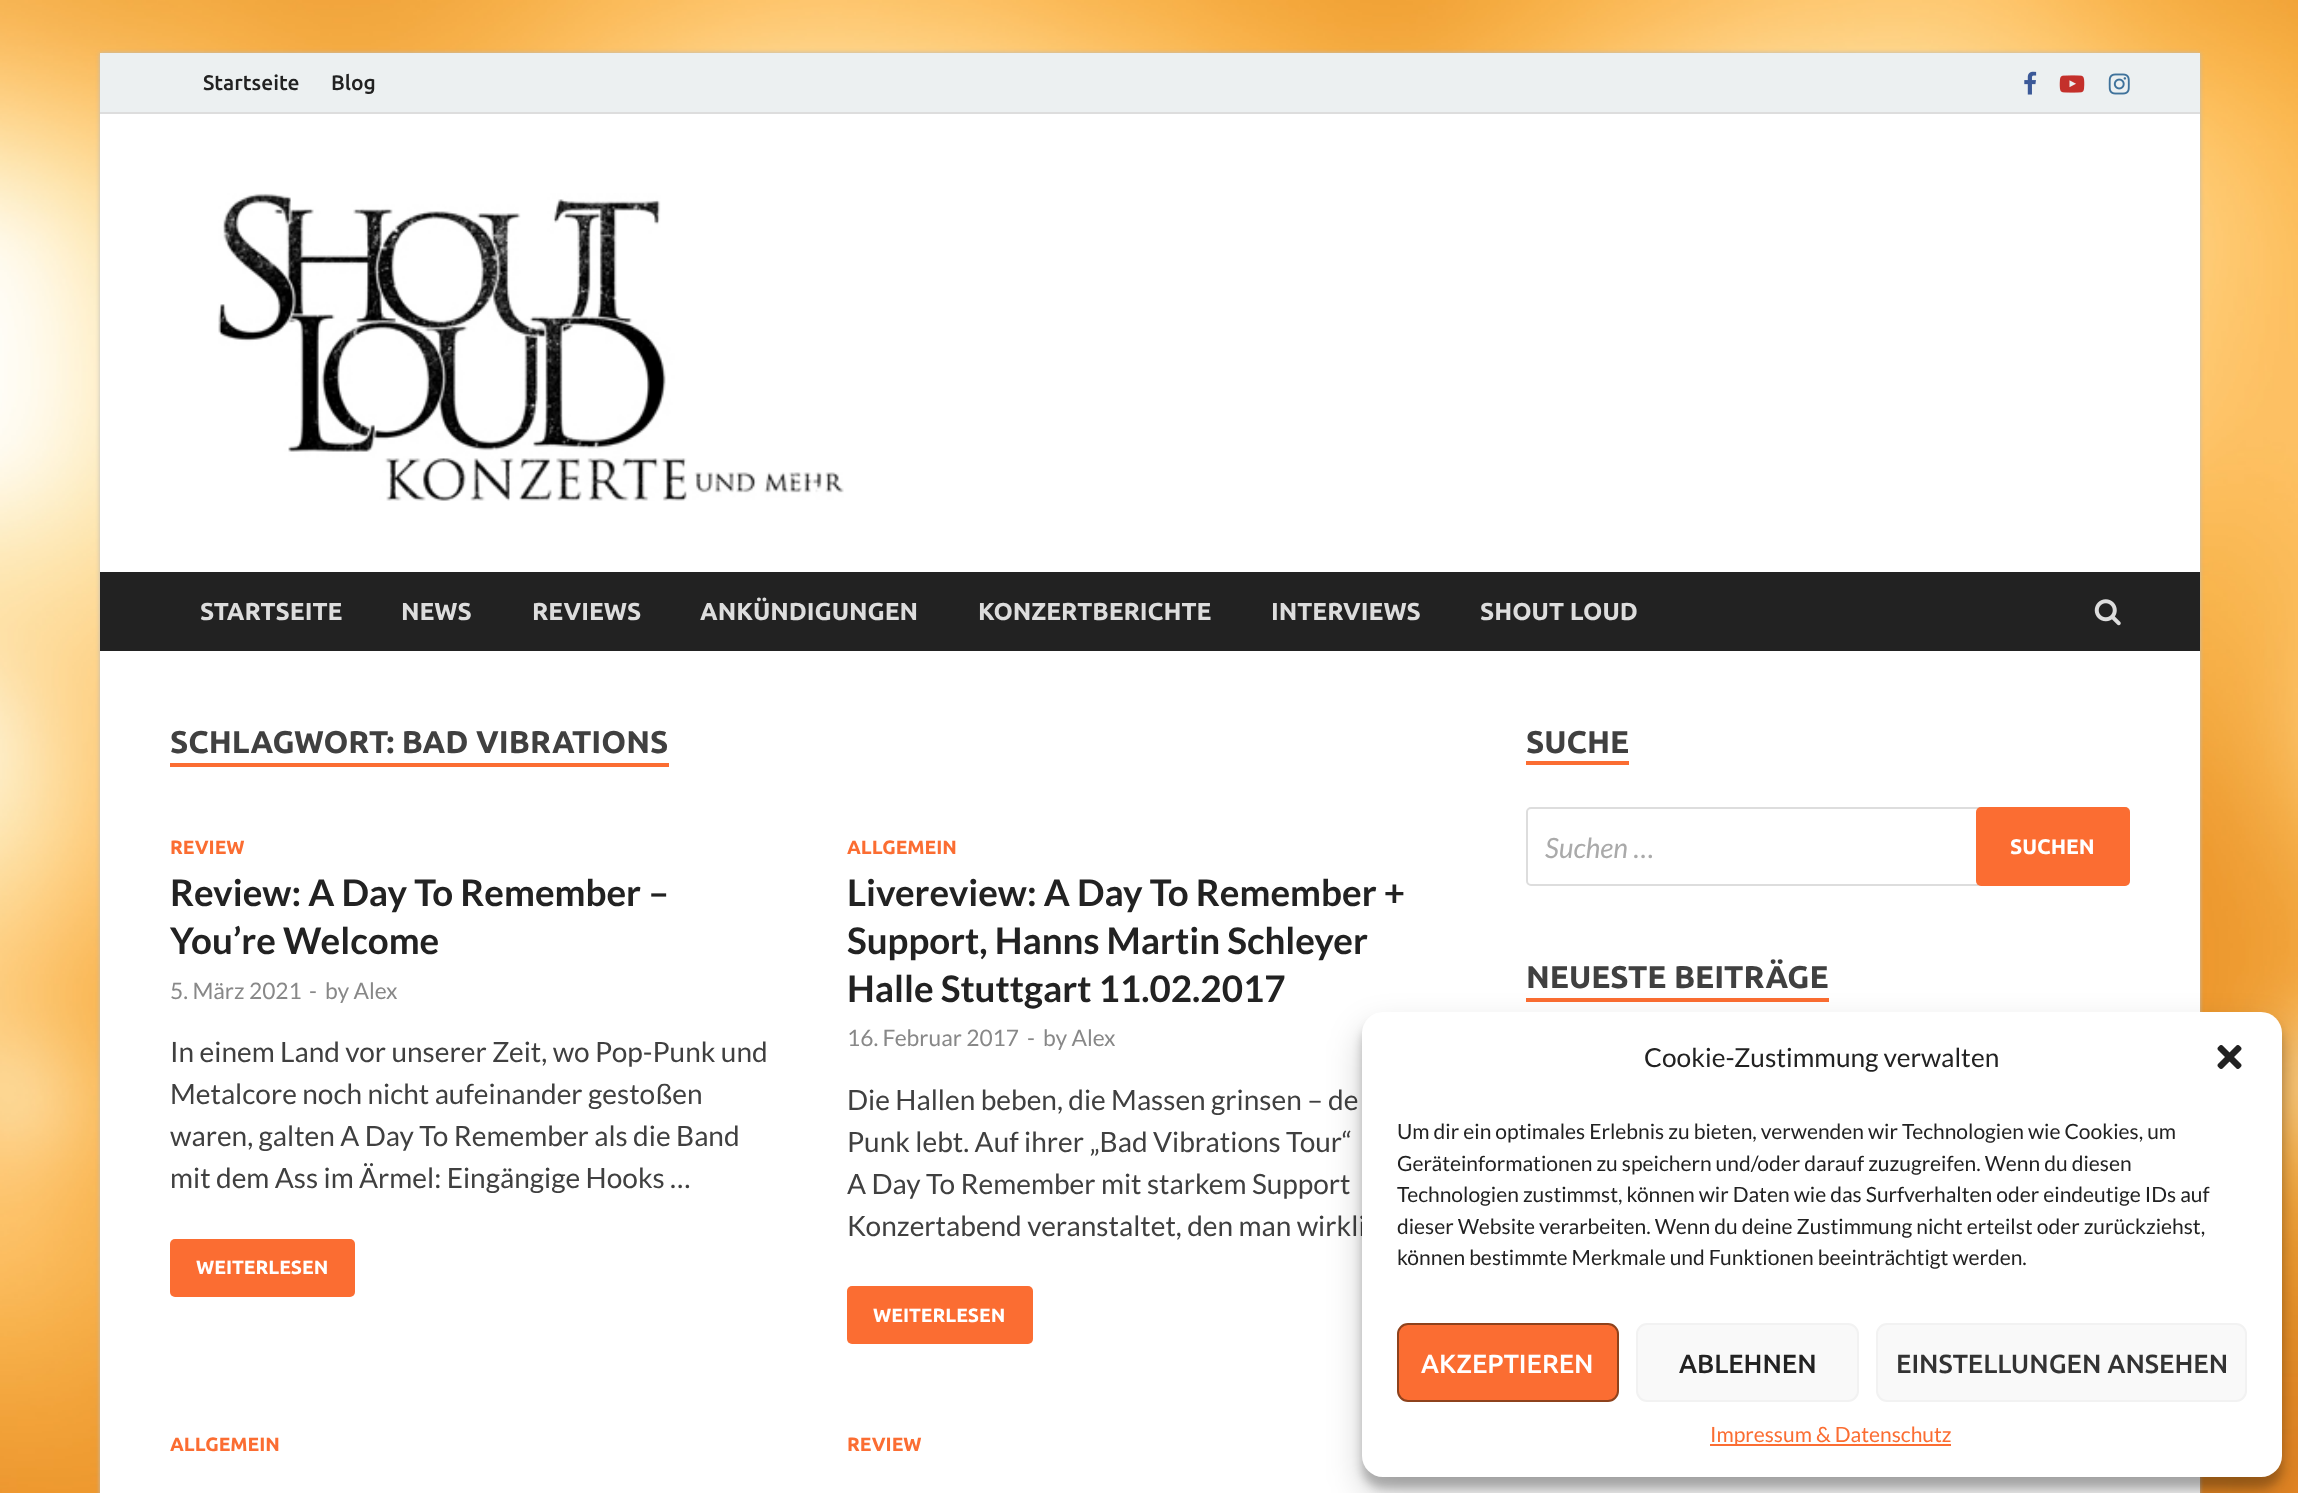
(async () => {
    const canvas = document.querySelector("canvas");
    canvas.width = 2298;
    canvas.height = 1493;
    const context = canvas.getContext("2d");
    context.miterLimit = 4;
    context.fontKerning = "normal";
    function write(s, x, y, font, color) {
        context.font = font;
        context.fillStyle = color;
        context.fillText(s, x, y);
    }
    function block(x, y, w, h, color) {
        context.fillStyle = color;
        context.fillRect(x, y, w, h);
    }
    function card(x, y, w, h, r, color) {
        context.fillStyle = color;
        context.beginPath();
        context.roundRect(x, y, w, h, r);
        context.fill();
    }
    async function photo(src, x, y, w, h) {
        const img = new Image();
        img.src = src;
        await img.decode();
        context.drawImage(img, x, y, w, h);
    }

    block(0, 0, 2298, 1493, "rgb(255, 255, 255)");
    await photo("media/1.png", 0, 0, 2298, 1493);
    context.fillStyle = "rgb(187, 187, 187)";
    context.filter = "blur(2px)";
    context.beginPath();
    context.rect(100, 53, 2100, 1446);
    context.fill();
    context.filter = "none";
    block(100, 114, 2100, 1379, "rgb(255, 255, 255)");
    block(100, 53, 2100, 59, "rgb(236, 240, 241)");
    block(100, 112, 2100, 2, "rgb(221, 221, 221)");
    write("Startseite", 203, 90, "500 21px Ubuntu", "rgb(34, 34, 34)");
    write("Blog", 331, 90, "500 21px Ubuntu", "rgb(34, 34, 34)");
    await photo("media/2.png", 2024, 71, 13, 24);
    await photo("media/3.png", 2059, 75, 26, 18);
    await photo("media/4.png", 2108, 73, 22, 22);
    await photo("media/5.png", 218, 193, 626, 308);
    block(100, 572, 2100, 79, "rgb(34, 34, 34)");
    write("STARTSEITE", 200, 620, "bold 24.5px Ubuntu", "rgb(221, 221, 221)");
    write("NEWS", 401, 620, "bold 24.5px Ubuntu", "rgb(221, 221, 221)");
    write("REVIEWS", 532, 620, "bold 24.5px Ubuntu", "rgb(221, 221, 221)");
    write("ANKÜNDIGUNGEN", 700, 620, "bold 24.5px Ubuntu", "rgb(221, 221, 221)");
    write("KONZERTBERICHTE", 978, 620, "bold 24.5px Ubuntu", "rgb(221, 221, 221)");
    write("INTERVIEWS", 1271, 620, "bold 24.5px Ubuntu", "rgb(221, 221, 221)");
    write("SHOUT LOUD", 1480, 620, "bold 24.5px Ubuntu", "rgb(221, 221, 221)");
    await photo("media/6.png", 2094, 599, 27, 27);
    write("SCHLAGWORT: BAD VIBRATIONS", 170, 753, "bold 31.5px Ubuntu", "rgb(64, 64, 64)");
    block(170, 763, 499, 4, "rgb(251, 109, 50)");
    write("REVIEW", 170, 854, "bold 19.25px Ubuntu", "rgb(251, 109, 50)");
    write("Review: A Day To Remember –", 170, 906, "bold 36.75px Lato", "rgb(34, 34, 34)");
    write("You’re Welcome", 170, 954, "bold 36.75px Lato", "rgb(34, 34, 34)");
    write("5. März 2021", 170, 999, "22.75px Lato", "rgb(136, 136, 136)");
    write("-", 309, 999, "22.75px Lato", "rgb(136, 136, 136)");
    write("by Alex", 325, 999, "22.75px Lato", "rgb(136, 136, 136)");
    write("In einem Land vor unserer Zeit, wo Pop-Punk und", 170, 1062, "28px Lato", "rgb(64, 64, 64)");
    write("Metalcore noch nicht aufeinander gestoßen", 170, 1104, "28px Lato", "rgb(64, 64, 64)");
    write("waren, galten A Day To Remember als die Band", 170, 1146, "28px Lato", "rgb(64, 64, 64)");
    write("mit dem Ass im Ärmel: Eingängige Hooks …", 170, 1188, "28px Lato", "rgb(64, 64, 64)");
    card(170, 1239, 185, 58, 5, "rgb(251, 109, 50)");
    write("WEITERLESEN", 196, 1274, "bold 19.25px Ubuntu", "rgb(255, 255, 255)");
    write("ALLGEMEIN", 847, 854, "bold 19.25px Ubuntu", "rgb(251, 109, 50)");
    write("Livereview: A Day To Remember +", 847, 906, "bold 36.75px Lato", "rgb(34, 34, 34)");
    write("Support, Hanns Martin Schleyer", 847, 954, "bold 36.75px Lato", "rgb(34, 34, 34)");
    write("Halle Stuttgart 11.02.2017", 847, 1002, "bold 36.75px Lato", "rgb(34, 34, 34)");
    write("16. Februar 2017", 847, 1046, "22.75px Lato", "rgb(136, 136, 136)");
    write("-", 1027, 1046, "22.75px Lato", "rgb(136, 136, 136)");
    write("by Alex", 1043, 1046, "22.75px Lato", "rgb(136, 136, 136)");
    write("Die Hallen beben, die Massen grinsen – de", 847, 1110, "28px Lato", "rgb(64, 64, 64)");
    write("Punk lebt. Auf ihrer „Bad Vibrations Tour“", 847, 1152, "28px Lato", "rgb(64, 64, 64)");
    write("A Day To Remember mit starkem Support", 847, 1194, "28px Lato", "rgb(64, 64, 64)");
    write("Konzertabend veranstaltet, den man wirkli", 847, 1236, "28px Lato", "rgb(64, 64, 64)");
    card(847, 1286, 186, 58, 5, "rgb(251, 109, 50)");
    write("WEITERLESEN", 873, 1322, "bold 19.25px Ubuntu", "rgb(255, 255, 255)");
    write("ALLGEMEIN", 170, 1451, "bold 19.25px Ubuntu", "rgb(251, 109, 50)");
    write("REVIEW", 847, 1451, "bold 19.25px Ubuntu", "rgb(251, 109, 50)");
    block(1526, 761, 103, 4, "rgb(251, 109, 50)");
    write("SUCHE", 1526, 753, "bold 31.5px Ubuntu", "rgb(64, 64, 64)");
    context.beginPath();
    context.roundRect(1527, 808, 602, 77, 4);
    context.strokeStyle = "rgb(221, 221, 221)";
    context.lineWidth = 2;
    context.stroke();
    write("Suchen …", 1545, 858, "italic 28px Lato", "rgb(170, 170, 170)");
    card(1976, 807, 154, 79, 5, "rgb(251, 109, 50)");
    write("SUCHEN", 2010, 854, "bold 21px Ubuntu", "rgb(255, 255, 255)");
    block(1526, 998, 303, 4, "rgb(251, 109, 50)");
    write("NEUESTE BEITRÄGE", 1526, 988, "bold 31.5px Ubuntu", "rgb(64, 64, 64)");
    context.fillStyle = "rgba(0, 0, 0, 0.23)";
    context.filter = "blur(5px)";
    context.beginPath();
    context.roundRect(1362, 1022, 920, 466, 21);
    context.fill();
    context.filter = "none";
    context.fillStyle = "rgba(0, 0, 0, 0.19)";
    context.filter = "blur(17.5px)";
    context.beginPath();
    context.roundRect(1362, 1029, 920, 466, 21);
    context.fill();
    context.filter = "none";
    card(1362, 1012, 920, 465, 21, "rgb(255, 255, 255)");
    write("Cookie-Zustimmung verwalten", 1644, 1067, "26.25px Lato", "rgb(34, 34, 34)");
    await photo("media/7.png", 2217, 1045, 25, 24);
    write("Um dir ein optimales Erlebnis zu bieten, verwenden wir Technologien wie Cookies, um", 1397, 1139, "21px Lato", "rgb(34, 34, 34)");
    write("Geräteinformationen zu speichern und/oder darauf zuzugreifen. Wenn du diesen", 1397, 1171, "21px Lato", "rgb(34, 34, 34)");
    write("Technologien zustimmst, können wir Daten wie das Surfverhalten oder eindeutige IDs auf", 1397, 1202, "21px Lato", "rgb(34, 34, 34)");
    write("dieser Website verarbeiten. Wenn du deine Zustimmung nicht erteilst oder zurückziehst,", 1397, 1234, "21px Lato", "rgb(34, 34, 34)");
    write("können bestimmte Merkmale und Funktionen beeinträchtigt werden.", 1397, 1265, "21px Lato", "rgb(34, 34, 34)");
    context.fillStyle = "rgb(251, 109, 50)";
    context.beginPath();
    context.roundRect(1398, 1324, 220, 77, 10);
    context.fill();
    context.strokeStyle = "rgb(142, 66, 28)";
    context.stroke();
    write("AKZEPTIEREN", 1421, 1373, "500 26.25px Ubuntu", "rgb(255, 255, 255)");
    context.fillStyle = "rgb(249, 249, 249)";
    context.beginPath();
    context.roundRect(1637, 1324, 221, 77, 10);
    context.fill();
    context.strokeStyle = "rgb(242, 242, 242)";
    context.stroke();
    write("ABLEHNEN", 1679, 1373, "500 26.25px Ubuntu", "rgb(34, 34, 34)");
    context.fillStyle = "rgb(249, 249, 249)";
    context.beginPath();
    context.roundRect(1877, 1324, 369, 77, 10);
    context.fill();
    context.stroke();
    write("EINSTELLUNGEN ANSEHEN", 1896, 1373, "500 26.25px Ubuntu", "rgb(51, 51, 51)");
    block(1710, 1444, 241, 2, "rgb(251, 109, 50)");
    write("Impressum & Datenschutz", 1710, 1442, "21px Lato", "rgb(251, 109, 50)");
})();
